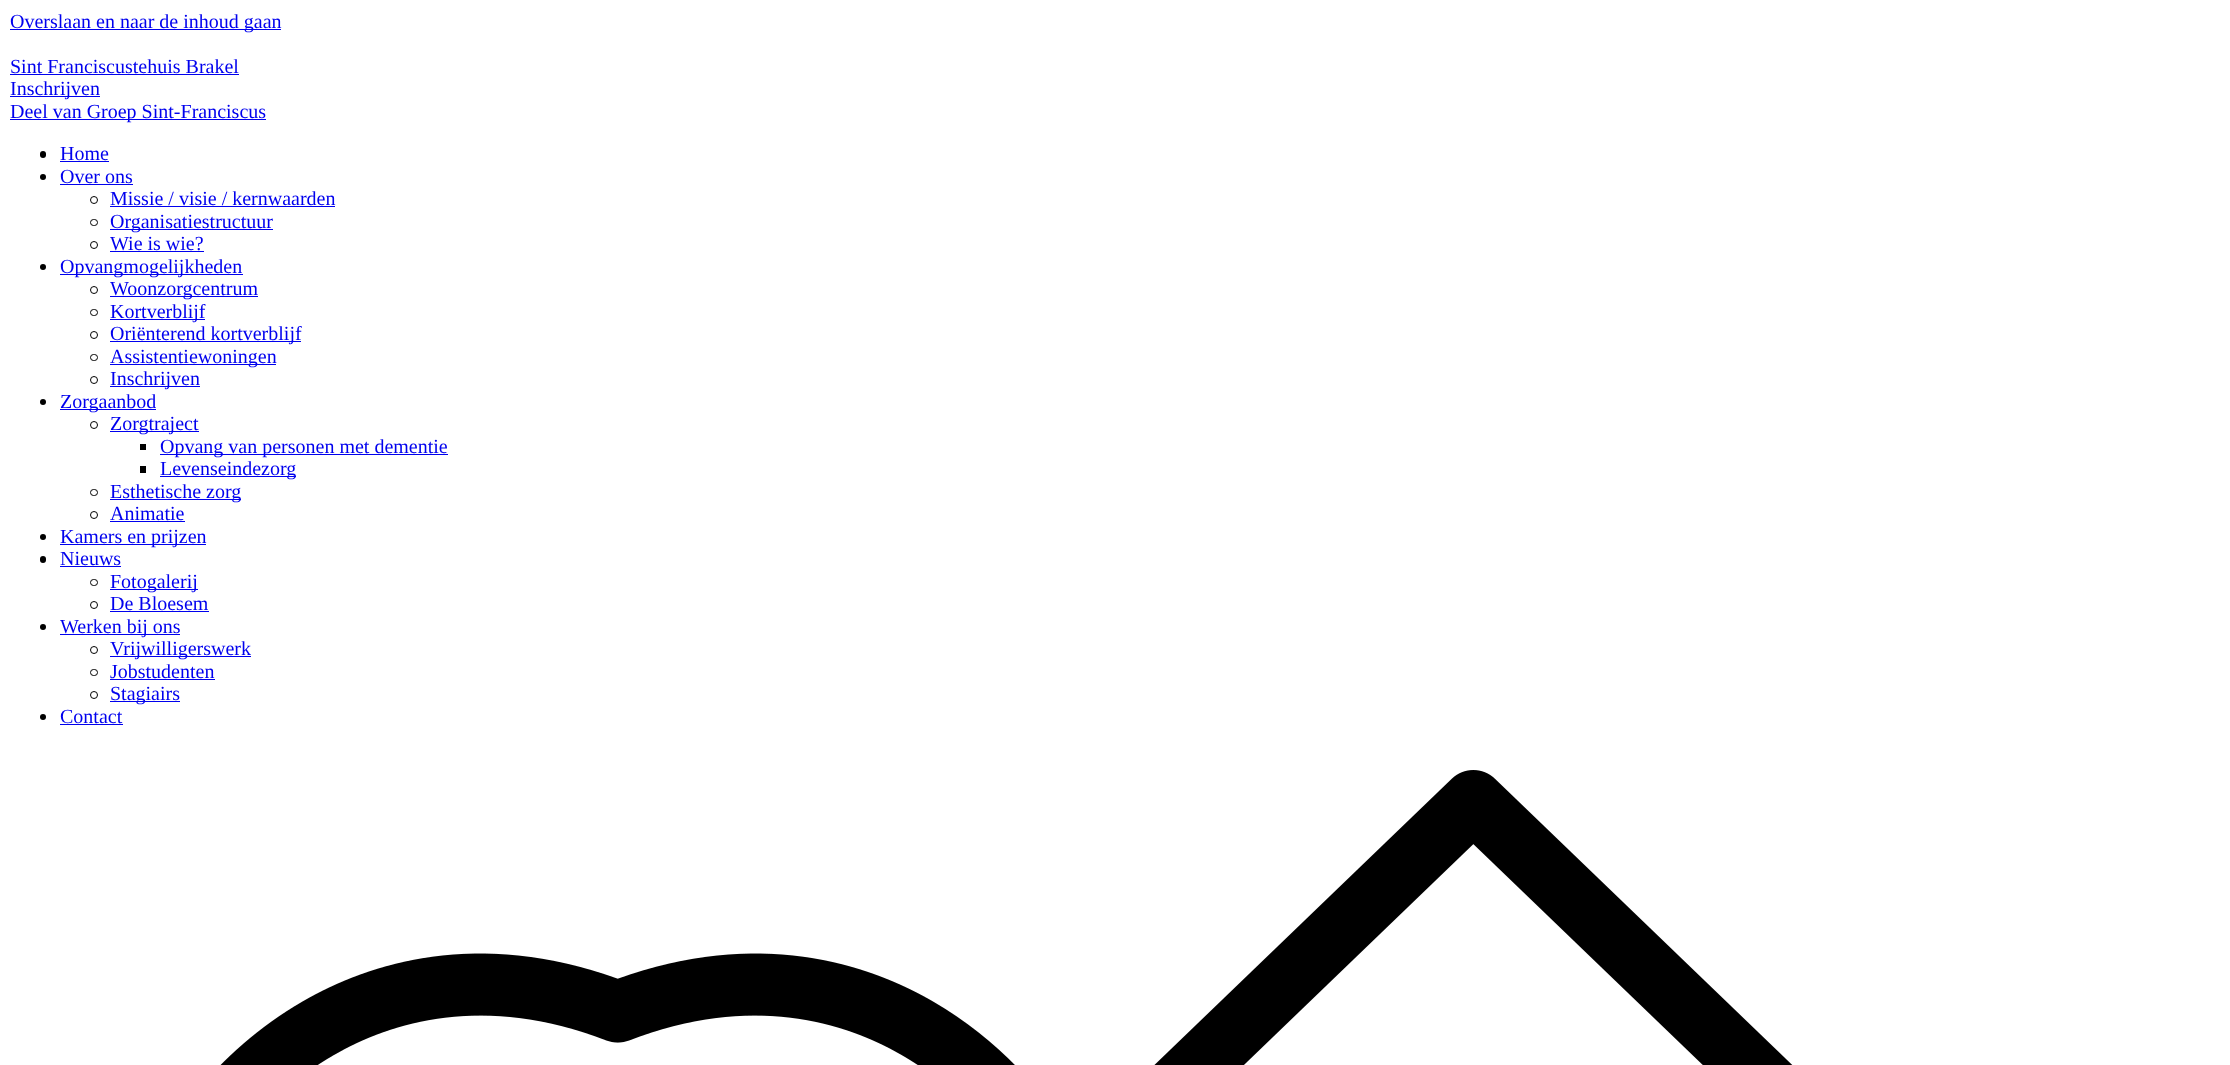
(async () => {
    const canvas = document.querySelector("canvas");
    canvas.width = 2230;
    canvas.height = 1065;
    const context = canvas.getContext("2d");
    context.miterLimit = 4;
    context.fontKerning = "normal";
    function write(s, x, y, font, color) {
        context.font = font;
        context.fillStyle = color;
        context.fillText(s, x, y);
    }
    function block(x, y, w, h, color) {
        context.fillStyle = color;
        context.fillRect(x, y, w, h);
    }
    function card(x, y, w, h, r, color) {
        context.fillStyle = color;
        context.beginPath();
        context.roundRect(x, y, w, h, r);
        context.fill();
    }
    async function photo(src, x, y, w, h) {
        const img = new Image();
        img.src = src;
        await img.decode();
        context.drawImage(img, x, y, w, h);
    }

    block(0, 0, 2230, 1065, "rgb(255, 255, 255)");
    block(10, 29, 271, 1, "rgb(0, 0, 238)");
    write("Overslaan en naar de inhoud gaan", 10, 28, "20px Liberation Serif", "rgb(0, 0, 238)");
    write("Sint Franciscustehuis Brakel", 10, 73, "20px Liberation Serif", "rgb(0, 0, 238)");
    block(10, 74, 229, 1, "rgb(0, 0, 238)");
    block(10, 96, 90, 1, "rgb(0, 0, 238)");
    write("Inschrijven", 10, 95, "20px Liberation Serif", "rgb(0, 0, 238)");
    block(10, 119, 256, 1, "rgb(0, 0, 238)");
    write("Deel van Groep Sint-Franciscus", 10, 118, "20px Liberation Serif", "rgb(0, 0, 238)");
    card(40, 151, 6, 7, 3, "rgb(0, 0, 0)");
    write("Home", 60, 160, "20px Liberation Serif", "rgb(0, 0, 238)");
    block(60, 161, 49, 1, "rgb(0, 0, 238)");
    context.fillStyle = "rgb(0, 0, 0)";
    context.beginPath();
    context.arc(43, 177, 3, 0, Math.PI * 2);
    context.fill();
    write("Over ons", 60, 183, "20px Liberation Serif", "rgb(0, 0, 238)");
    block(60, 184, 73, 1, "rgb(0, 0, 238)");
    context.beginPath();
    context.arc(94, 200, 3.5, 0, Math.PI * 2);
    context.strokeStyle = "rgb(0, 0, 0)";
    context.stroke();
    write("Missie / visie / kernwaarden", 110, 205, "20px Liberation Serif", "rgb(0, 0, 238)");
    block(110, 206, 225, 1, "rgb(0, 0, 238)");
    context.beginPath();
    context.roundRect(90.5, 219.5, 7, 6, 3);
    context.stroke();
    block(110, 229, 163, 1, "rgb(0, 0, 238)");
    write("Organisatiestructuur", 110, 228, "20px Liberation Serif", "rgb(0, 0, 238)");
    context.beginPath();
    context.arc(94, 245, 3.5, 0, Math.PI * 2);
    context.stroke();
    write("Wie is wie?", 110, 250, "20px Liberation Serif", "rgb(0, 0, 238)");
    block(110, 251, 94, 1, "rgb(0, 0, 238)");
    context.fillStyle = "rgb(0, 0, 0)";
    context.beginPath();
    context.arc(43, 267, 3, 0, Math.PI * 2);
    context.fill();
    block(60, 274, 183, 1, "rgb(0, 0, 238)");
    write("Opvangmogelijkheden", 60, 273, "20px Liberation Serif", "rgb(0, 0, 238)");
    context.beginPath();
    context.arc(94, 290, 3.5, 0, Math.PI * 2);
    context.stroke();
    block(110, 296, 148, 1, "rgb(0, 0, 238)");
    write("Woonzorgcentrum", 110, 295, "20px Liberation Serif", "rgb(0, 0, 238)");
    context.beginPath();
    context.roundRect(90.5, 309.5, 7, 6, 3);
    context.stroke();
    block(110, 319, 95, 1, "rgb(0, 0, 238)");
    write("Kortverblijf", 110, 318, "20px Liberation Serif", "rgb(0, 0, 238)");
    context.beginPath();
    context.arc(94, 335, 3.5, 0, Math.PI * 2);
    context.stroke();
    block(110, 341, 191, 1, "rgb(0, 0, 238)");
    write("Oriënterend kortverblijf", 110, 340, "20px Liberation Serif", "rgb(0, 0, 238)");
    context.beginPath();
    context.roundRect(90.5, 354.5, 7, 6, 3);
    context.stroke();
    block(110, 364, 166, 1, "rgb(0, 0, 238)");
    write("Assistentiewoningen", 110, 363, "20px Liberation Serif", "rgb(0, 0, 238)");
    context.beginPath();
    context.arc(94, 380, 3.5, 0, Math.PI * 2);
    context.stroke();
    block(110, 386, 90, 1, "rgb(0, 0, 238)");
    write("Inschrijven", 110, 385, "20px Liberation Serif", "rgb(0, 0, 238)");
    context.fillStyle = "rgb(0, 0, 0)";
    context.beginPath();
    context.arc(43, 402, 3, 0, Math.PI * 2);
    context.fill();
    block(60, 409, 96, 1, "rgb(0, 0, 238)");
    write("Zorgaanbod", 60, 408, "20px Liberation Serif", "rgb(0, 0, 238)");
    context.beginPath();
    context.arc(94, 425, 3.5, 0, Math.PI * 2);
    context.stroke();
    block(110, 431, 89, 1, "rgb(0, 0, 238)");
    write("Zorgtraject", 110, 430, "20px Liberation Serif", "rgb(0, 0, 238)");
    block(140, 444, 6, 6, "rgb(0, 0, 0)");
    block(160, 454, 288, 1, "rgb(0, 0, 238)");
    write("Opvang van personen met dementie", 160, 453, "20px Liberation Serif", "rgb(0, 0, 238)");
    block(140, 466, 6, 7, "rgb(0, 0, 0)");
    block(160, 476, 136, 1, "rgb(0, 0, 238)");
    write("Levenseindezorg", 160, 475, "20px Liberation Serif", "rgb(0, 0, 238)");
    context.beginPath();
    context.roundRect(90.5, 489.5, 7, 6, 3);
    context.stroke();
    block(110, 499, 131, 1, "rgb(0, 0, 238)");
    write("Esthetische zorg", 110, 498, "20px Liberation Serif", "rgb(0, 0, 238)");
    context.beginPath();
    context.arc(94, 515, 3.5, 0, Math.PI * 2);
    context.stroke();
    write("Animatie", 110, 520, "20px Liberation Serif", "rgb(0, 0, 238)");
    block(110, 521, 75, 1, "rgb(0, 0, 238)");
    context.fillStyle = "rgb(0, 0, 0)";
    context.beginPath();
    context.arc(43, 537, 3, 0, Math.PI * 2);
    context.fill();
    block(60, 544, 146, 1, "rgb(0, 0, 238)");
    write("Kamers en prijzen", 60, 543, "20px Liberation Serif", "rgb(0, 0, 238)");
    card(40, 556, 6, 7, 3, "rgb(0, 0, 0)");
    write("Nieuws", 60, 565, "20px Liberation Serif", "rgb(0, 0, 238)");
    block(60, 566, 61, 1, "rgb(0, 0, 238)");
    context.beginPath();
    context.roundRect(90.5, 579.5, 7, 6, 3);
    context.stroke();
    block(110, 589, 88, 1, "rgb(0, 0, 238)");
    write("Fotogalerij", 110, 588, "20px Liberation Serif", "rgb(0, 0, 238)");
    context.beginPath();
    context.arc(94, 605, 3.5, 0, Math.PI * 2);
    context.stroke();
    write("De Bloesem", 110, 610, "20px Liberation Serif", "rgb(0, 0, 238)");
    block(110, 611, 99, 1, "rgb(0, 0, 238)");
    context.fillStyle = "rgb(0, 0, 0)";
    context.beginPath();
    context.arc(43, 627, 3, 0, Math.PI * 2);
    context.fill();
    block(60, 634, 120, 1, "rgb(0, 0, 238)");
    write("Werken bij ons", 60, 633, "20px Liberation Serif", "rgb(0, 0, 238)");
    context.beginPath();
    context.arc(94, 650, 3.5, 0, Math.PI * 2);
    context.stroke();
    block(110, 656, 141, 1, "rgb(0, 0, 238)");
    write("Vrijwilligerswerk", 110, 655, "20px Liberation Serif", "rgb(0, 0, 238)");
    context.beginPath();
    context.roundRect(90.5, 669.5, 7, 6, 3);
    context.stroke();
    write("Jobstudenten", 110, 678, "20px Liberation Serif", "rgb(0, 0, 238)");
    block(110, 679, 105, 1, "rgb(0, 0, 238)");
    context.beginPath();
    context.arc(94, 695, 3.5, 0, Math.PI * 2);
    context.stroke();
    block(110, 701, 70, 1, "rgb(0, 0, 238)");
    write("Stagiairs", 110, 700, "20px Liberation Serif", "rgb(0, 0, 238)");
    context.fillStyle = "rgb(0, 0, 0)";
    context.beginPath();
    context.arc(43, 717, 3, 0, Math.PI * 2);
    context.fill();
    write("Contact", 60, 723, "20px Liberation Serif", "rgb(0, 0, 238)");
    block(60, 724, 63, 1, "rgb(0, 0, 238)");
    await photo("media/1.png", 220, 770, 1573, 295);
})();
